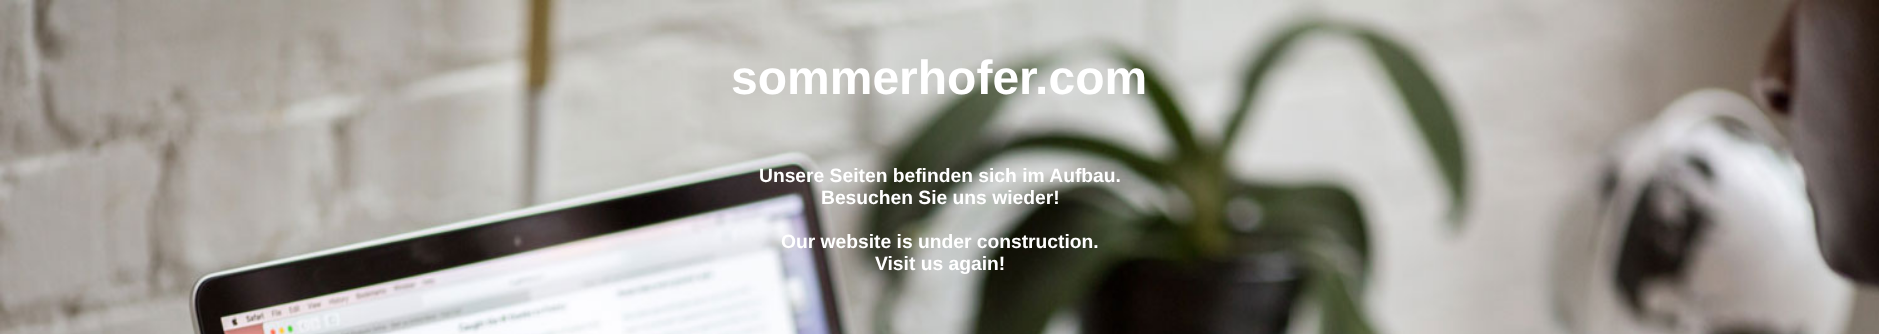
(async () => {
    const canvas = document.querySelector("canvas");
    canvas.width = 1879;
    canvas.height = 334;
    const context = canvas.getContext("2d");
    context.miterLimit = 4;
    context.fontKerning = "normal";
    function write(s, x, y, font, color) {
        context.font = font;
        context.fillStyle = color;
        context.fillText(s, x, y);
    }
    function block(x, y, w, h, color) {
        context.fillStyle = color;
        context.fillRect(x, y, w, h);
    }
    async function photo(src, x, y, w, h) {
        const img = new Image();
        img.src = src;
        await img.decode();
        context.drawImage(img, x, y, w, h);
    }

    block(0, 0, 1879, 334, "rgb(255, 255, 255)");
    await photo("media/1.png", 0, 0, 1879, 334);
    write("sommerhofer.com", 731, 94, "bold 48px Liberation Sans", "rgb(255, 255, 255)");
    write("Unsere Seiten befinden sich im Aufbau.", 759, 182, "bold 19.25px Liberation Sans", "rgb(255, 255, 255)");
    write("Besuchen Sie uns wieder!", 821, 204, "bold 19.25px Liberation Sans", "rgb(255, 255, 255)");
    write("Our website is under construction.", 781, 248, "bold 19.25px Liberation Sans", "rgb(255, 255, 255)");
    write("Visit us again!", 875, 270, "bold 19.25px Liberation Sans", "rgb(255, 255, 255)");
})();
